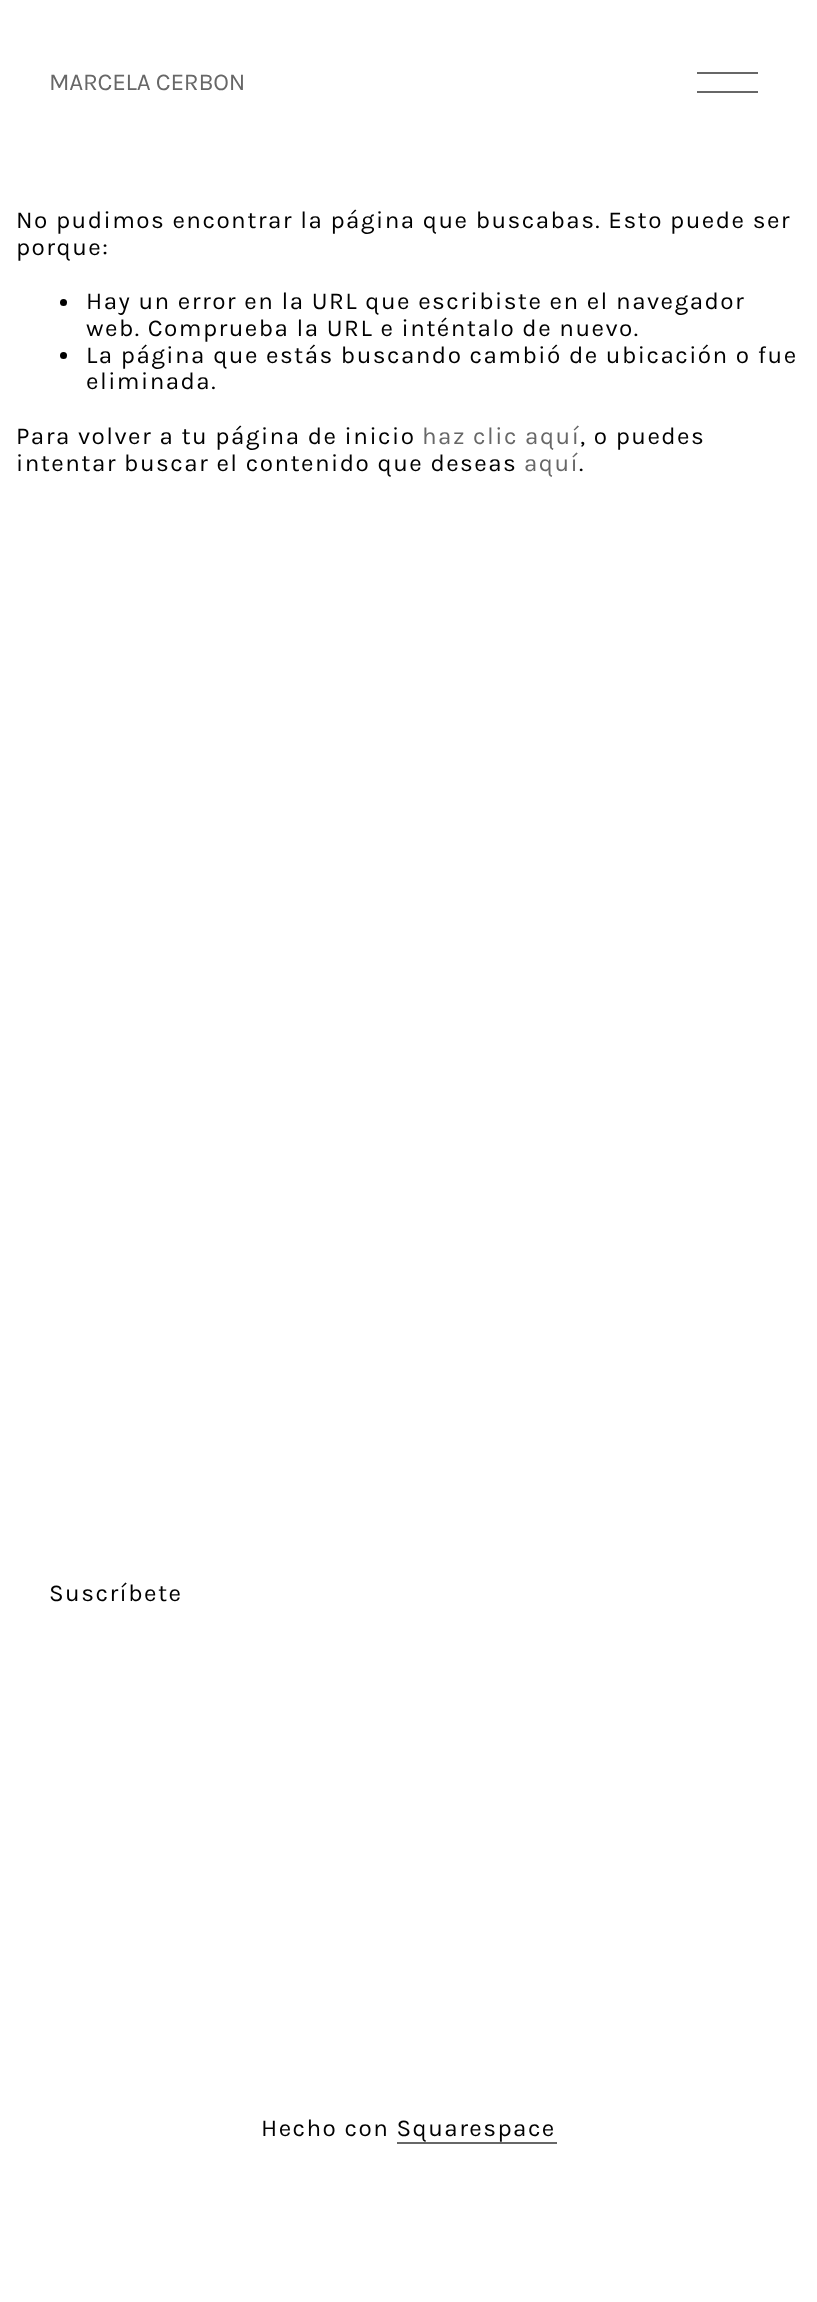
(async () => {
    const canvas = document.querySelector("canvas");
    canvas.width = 817;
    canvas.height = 2302;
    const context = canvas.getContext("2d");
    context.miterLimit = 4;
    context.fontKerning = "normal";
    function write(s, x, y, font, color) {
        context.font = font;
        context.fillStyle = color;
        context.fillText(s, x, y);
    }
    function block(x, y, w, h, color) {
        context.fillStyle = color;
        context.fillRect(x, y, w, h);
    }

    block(0, 0, 817, 2302, "rgb(255, 255, 255)");
    context.letterSpacing = "-0.25px";
    write("MARCELA CERBON", 49, 90, "24.25px Karla", "rgb(103, 103, 103)");
    block(697, 72, 61, 2, "rgb(103, 103, 103)");
    block(697, 91, 61, 2, "rgb(103, 103, 103)");
    context.letterSpacing = "1.45px";
    write("No pudimos encontrar la página que buscabas. Esto puede ser", 16, 228, "24.25px Karla", "rgb(0, 0, 0)");
    write("porque:", 16, 255, "24.25px Karla", "rgb(0, 0, 0)");
    context.beginPath();
    context.arc(63.5, 302.5, 3.5, 0, Math.PI * 2);
    context.fill();
    write("Hay un error en la URL que escribiste en el navegador", 86, 309, "24.25px Karla", "rgb(0, 0, 0)");
    write("web. Comprueba la URL e inténtalo de nuevo.", 86, 336, "24.25px Karla", "rgb(0, 0, 0)");
    context.beginPath();
    context.arc(63.5, 355.5, 3.5, 0, Math.PI * 2);
    context.fill();
    write("La página que estás buscando cambió de ubicación o fue", 86, 363, "24.25px Karla", "rgb(0, 0, 0)");
    write("eliminada.", 86, 389, "24.25px Karla", "rgb(0, 0, 0)");
    write("Para volver a tu página de inicio", 16, 444, "24.25px Karla", "rgb(0, 0, 0)");
    write("haz clic aquí", 422, 444, "24.25px Karla", "rgb(103, 103, 103)");
    write(", o puedes", 580, 444, "24.25px Karla", "rgb(0, 0, 0)");
    write("intentar buscar el contenido que deseas", 16, 471, "24.25px Karla", "rgb(0, 0, 0)");
    write("aquí", 524, 471, "24.25px Karla", "rgb(103, 103, 103)");
    write(".", 579, 471, "24.25px Karla", "rgb(0, 0, 0)");
    write("Suscríbete", 49, 1601, "24.25px Karla", "rgb(0, 0, 0)");
    write("Hecho con Squarespace", 261, 2136, "24.25px Karla", "rgb(0, 0, 0)");
    block(397, 2142, 160, 2, "rgb(103, 103, 103)");
})();
